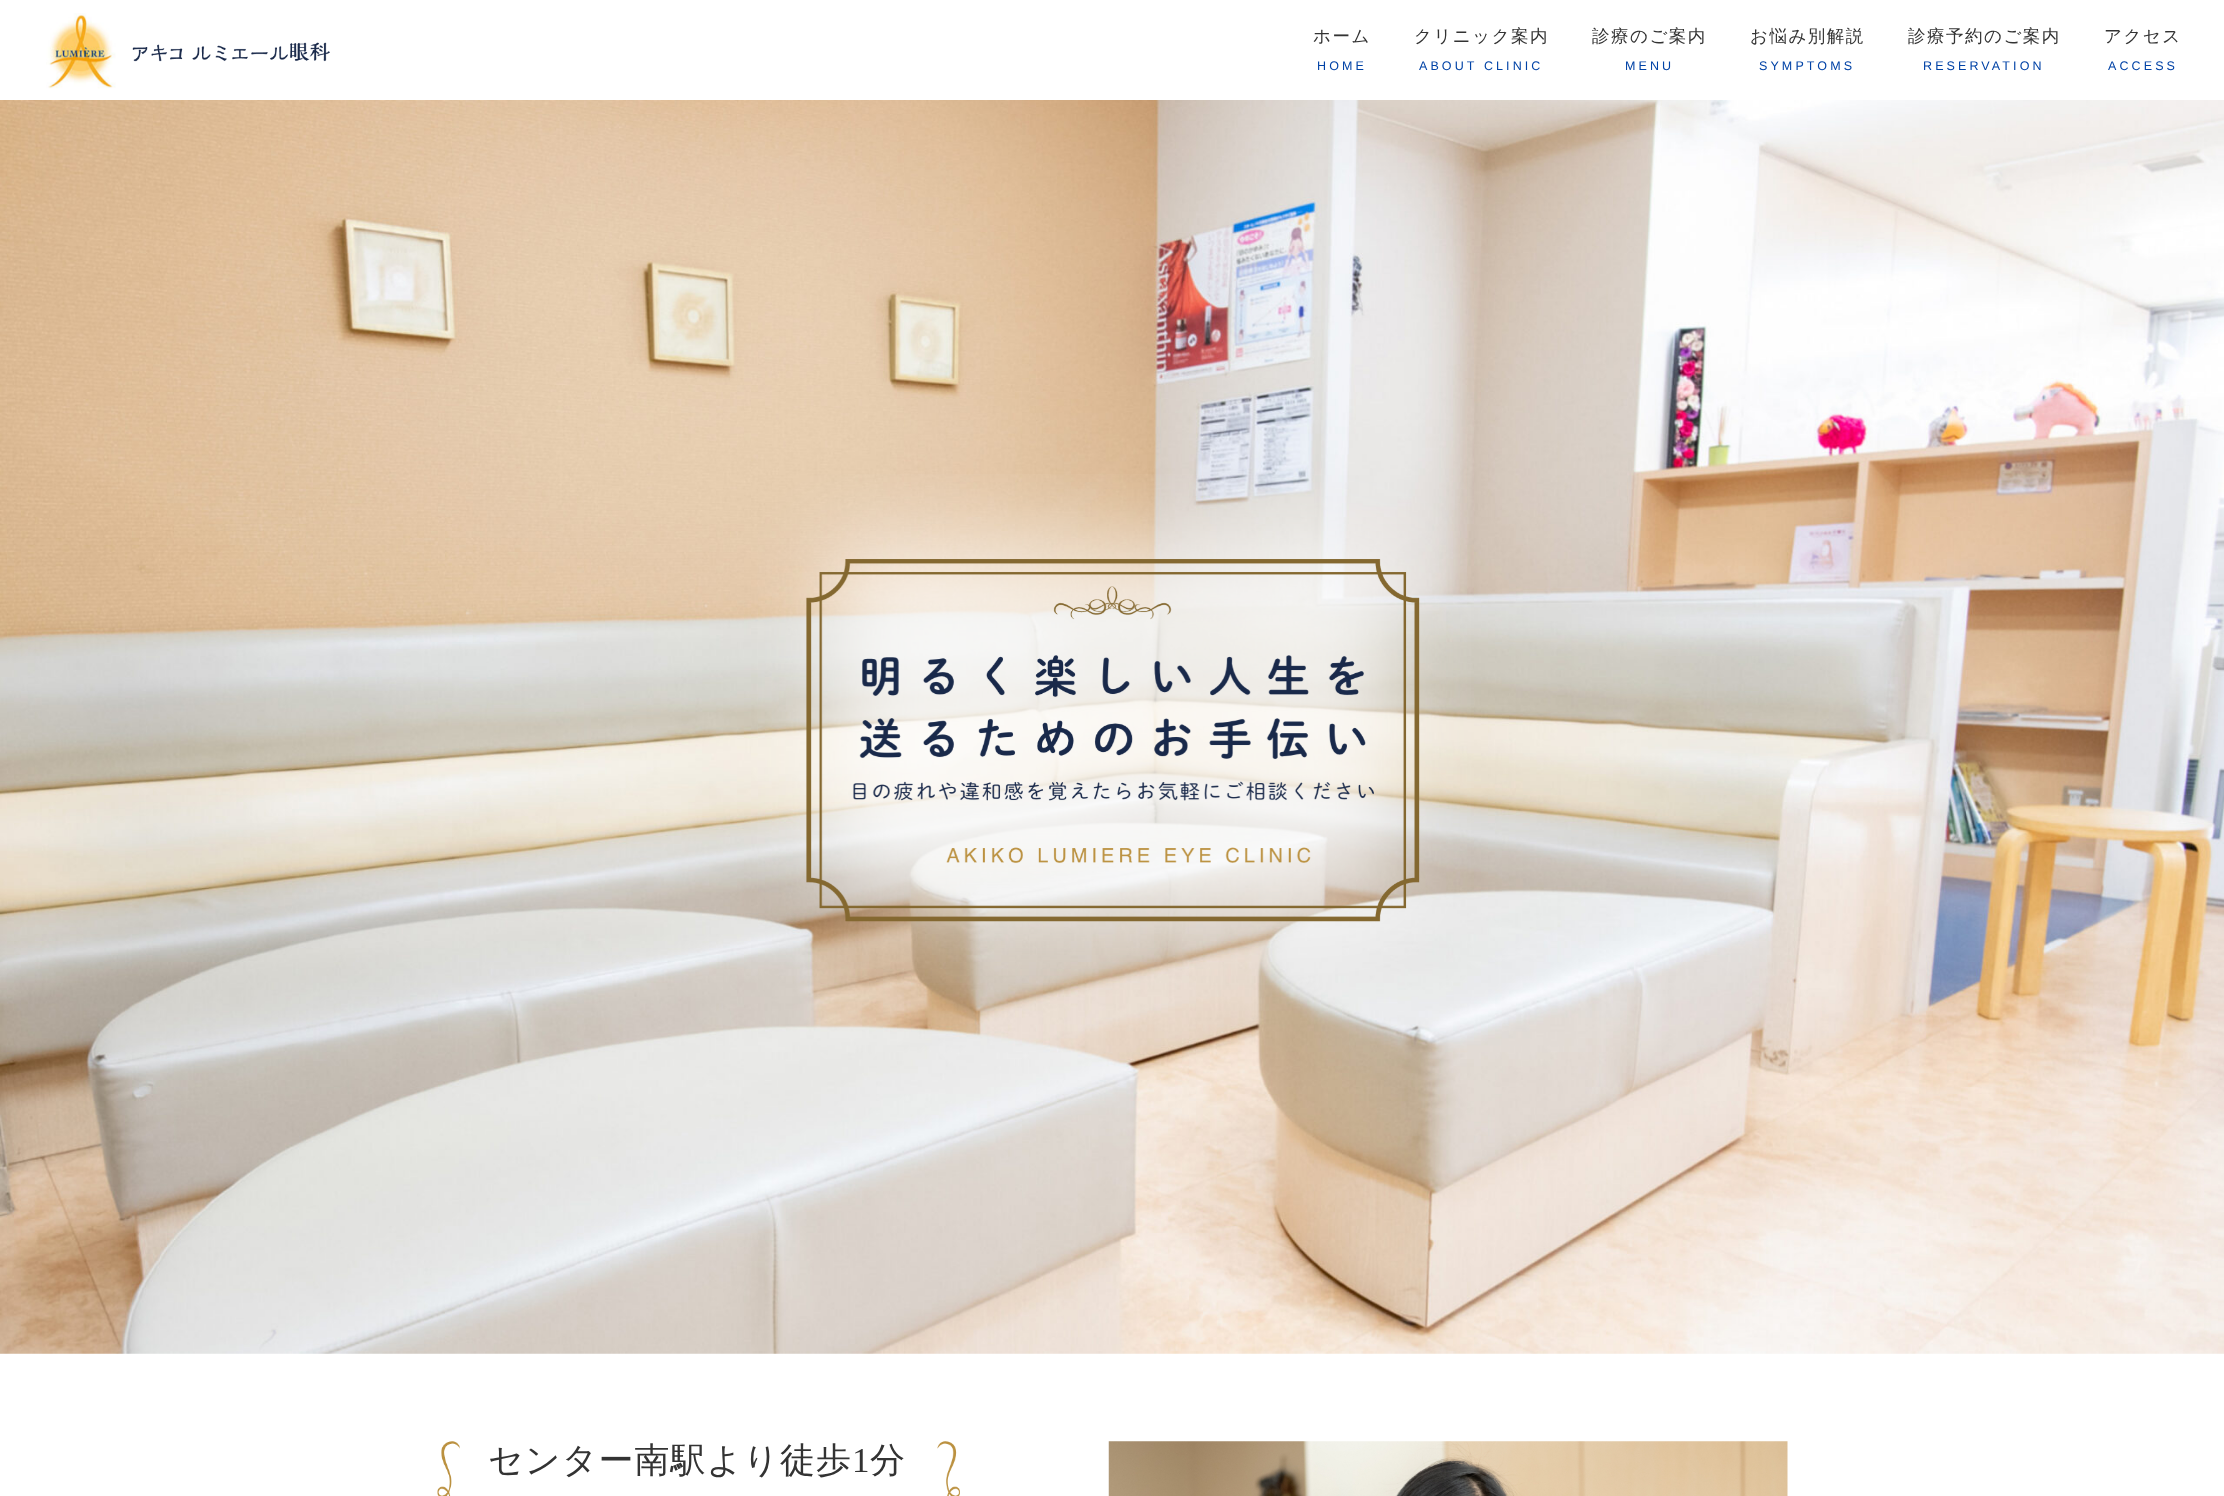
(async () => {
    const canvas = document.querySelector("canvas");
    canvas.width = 2224;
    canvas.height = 1496;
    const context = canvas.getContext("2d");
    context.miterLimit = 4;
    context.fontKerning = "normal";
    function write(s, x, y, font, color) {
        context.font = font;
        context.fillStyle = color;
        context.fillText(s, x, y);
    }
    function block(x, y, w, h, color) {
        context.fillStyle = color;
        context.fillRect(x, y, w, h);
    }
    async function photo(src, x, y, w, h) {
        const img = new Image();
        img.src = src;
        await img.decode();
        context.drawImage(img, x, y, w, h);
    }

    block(0, 0, 2224, 1496, "rgb(255, 255, 255)");
    await photo("media/1.png", 46, 13, 284, 76);
    context.letterSpacing = "1.5px";
    write("ホーム", 1313, 42, "500 17.5px WenQuanYi Zen Hei", "rgb(51, 51, 51)");
    context.letterSpacing = "3.1px";
    write("HOME", 1317, 70, "12.5px Liberation Sans", "rgb(0, 66, 166)");
    context.letterSpacing = "1.5px";
    write("クリニック案内", 1414, 42, "500 17.5px WenQuanYi Zen Hei", "rgb(51, 51, 51)");
    context.letterSpacing = "3.1px";
    write("ABOUT CLINIC", 1419, 70, "12.5px Liberation Sans", "rgb(0, 66, 166)");
    context.letterSpacing = "1.5px";
    write("診療のご案内", 1592, 42, "500 17.5px WenQuanYi Zen Hei", "rgb(51, 51, 51)");
    context.letterSpacing = "3.1px";
    write("MENU", 1625, 70, "12.5px Liberation Sans", "rgb(0, 66, 166)");
    context.letterSpacing = "1.5px";
    write("お悩み別解説", 1750, 42, "500 17.5px WenQuanYi Zen Hei", "rgb(51, 51, 51)");
    context.letterSpacing = "3.1px";
    write("SYMPTOMS", 1759, 70, "12.5px Liberation Sans", "rgb(0, 66, 166)");
    context.letterSpacing = "1.5px";
    write("診療予約のご案内", 1908, 42, "500 17.5px WenQuanYi Zen Hei", "rgb(51, 51, 51)");
    context.letterSpacing = "3.1px";
    write("RESERVATION", 1923, 70, "12.5px Liberation Sans", "rgb(0, 66, 166)");
    context.letterSpacing = "1.5px";
    write("アクセス", 2104, 42, "500 17.5px WenQuanYi Zen Hei", "rgb(51, 51, 51)");
    context.letterSpacing = "3.1px";
    write("ACCESS", 2108, 70, "12.5px Liberation Sans", "rgb(0, 66, 166)");
    await photo("media/2.png", 0, 100, 2224, 1254);
    await photo("media/3.png", 757, 474, 714, 511);
    await photo("media/4.png", 437, 1441, 523, 55);
    context.letterSpacing = "1px";
    write("センター南駅より徒歩", 488, 1472, "500 35px WenQuanYi Zen Hei", "rgb(51, 51, 51)");
    write("1", 852, 1472, "35px Liberation Serif", "rgb(51, 51, 51)");
    write("分", 870, 1472, "500 35px WenQuanYi Zen Hei", "rgb(51, 51, 51)");
    await photo("media/5.png", 1108, 1441, 680, 55);
})();
